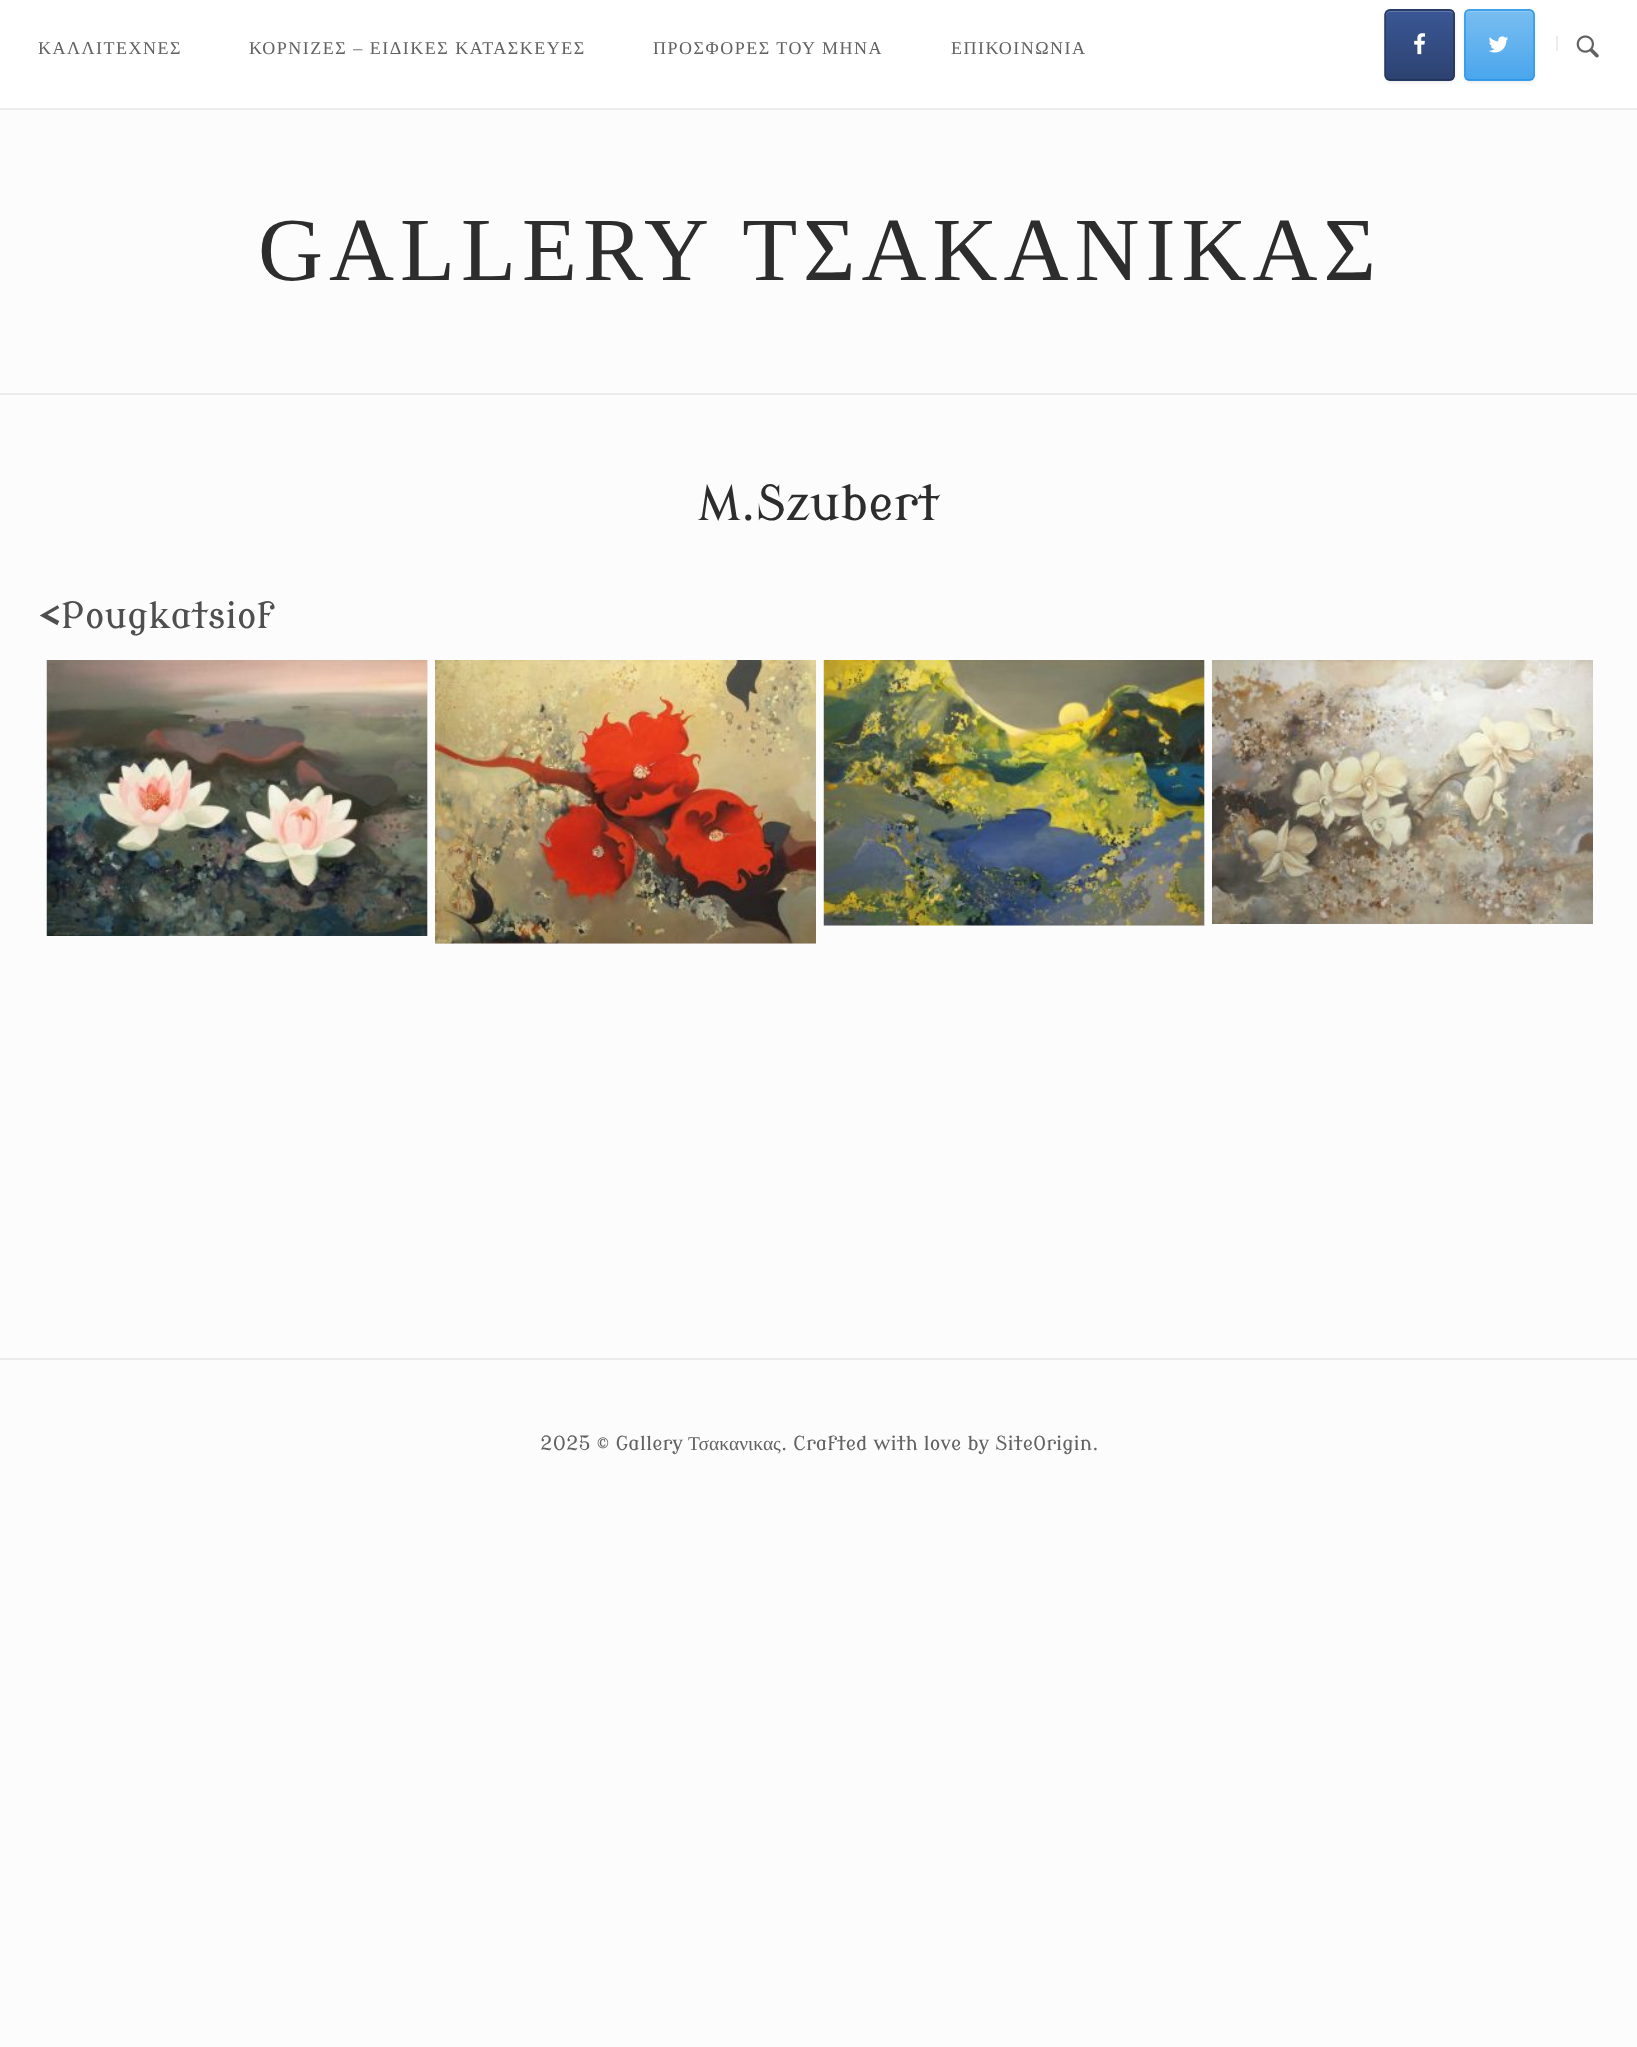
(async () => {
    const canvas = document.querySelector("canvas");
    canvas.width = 1637;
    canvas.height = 2047;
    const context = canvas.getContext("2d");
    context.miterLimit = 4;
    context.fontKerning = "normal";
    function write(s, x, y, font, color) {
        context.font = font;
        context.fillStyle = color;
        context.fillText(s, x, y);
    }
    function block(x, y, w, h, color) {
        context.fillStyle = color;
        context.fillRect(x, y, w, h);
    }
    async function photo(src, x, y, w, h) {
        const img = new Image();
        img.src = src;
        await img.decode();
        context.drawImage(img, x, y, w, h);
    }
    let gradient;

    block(0, 0, 1637, 2047, "rgb(252, 252, 252)");
    block(0, 393, 1637, 2, "rgb(235, 235, 235)");
    block(0, 0, 1637, 108, "rgb(255, 255, 255)");
    block(0, 108, 1637, 2, "rgb(235, 235, 235)");
    context.letterSpacing = "1.5px";
    write("ΚΑΛΛΙΤΕΧΝΕΣ", 38, 54, "18px Liberation Serif", "rgb(98, 98, 98)");
    write("ΚΟΡΝΙΖΕΣ – ΕΙΔΙΚΕΣ ΚΑΤΑΣΚΕΥΕΣ", 249, 54, "18px Liberation Serif", "rgb(98, 98, 98)");
    write("ΠΡΟΣΦΟΡΕΣ ΤΟΥ ΜΗΝΑ", 653, 54, "18px Liberation Serif", "rgb(98, 98, 98)");
    write("ΕΠΙΚΟΙΝΩΝΙΑ", 951, 54, "18px Liberation Serif", "rgb(98, 98, 98)");
    context.fillStyle = "rgba(0, 0, 0, 0.07)";
    context.filter = "blur(1.5px)";
    context.beginPath();
    context.roundRect(1385, 11, 70, 72, 6);
    context.fill();
    context.filter = "none";
    context.save();
    context.beginPath();
    context.roundRect(1385, 9, 70, 72, 6);
    context.clip();
    gradient = context.createLinearGradient(1386, 11, 1386, -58);
    gradient.addColorStop(0, "rgb(44, 66, 112)");
    gradient.addColorStop(1, "rgb(58, 87, 149)");
    context.fillStyle = gradient;
    context.fillRect(1385, 9, 70, 2);
    gradient = context.createLinearGradient(1386, 80, 1386, 11);
    gradient.addColorStop(0, "rgb(44, 66, 112)");
    gradient.addColorStop(1, "rgb(58, 87, 149)");
    context.fillStyle = gradient;
    context.fillRect(1385, 11, 70, 69);
    gradient = context.createLinearGradient(1386, 149, 1386, 80);
    gradient.addColorStop(0, "rgb(44, 66, 112)");
    gradient.addColorStop(1, "rgb(58, 87, 149)");
    context.fillStyle = gradient;
    context.fillRect(1385, 80, 70, 1);
    context.restore();
    context.fillStyle = "rgb(97, 121, 170)";
    context.beginPath();
    context.moveTo(1390, 12);
    context.lineTo(1449, 12);
    context.bezierCurveTo(1452, 12, 1454, 14, 1454, 16);
    context.bezierCurveTo(1454, 13, 1452, 11, 1449, 11);
    context.lineTo(1391, 11);
    context.bezierCurveTo(1388, 11, 1386, 13, 1386, 16);
    context.bezierCurveTo(1386, 14, 1388, 12, 1390, 12);
    context.closePath();
    context.fill();
    context.beginPath();
    context.moveTo(1386.5, 11);
    context.bezierCurveTo(1387.5, 10.5, 1389, 10, 1390, 10);
    context.lineTo(1449.5, 10);
    context.bezierCurveTo(1450.5, 10, 1452, 10.5, 1453, 11);
    context.strokeStyle = "rgb(39, 59, 101)";
    context.lineWidth = 1.5;
    context.stroke();
    context.beginPath();
    context.moveTo(1453, 11);
    context.bezierCurveTo(1453.5, 12, 1454, 13.5, 1454, 14.5);
    context.lineTo(1454, 75.5);
    context.bezierCurveTo(1454, 76.5, 1453.5, 78, 1453, 79);
    context.strokeStyle = "rgb(37, 55, 94)";
    context.stroke();
    context.beginPath();
    context.moveTo(1453, 79);
    context.bezierCurveTo(1452, 79.5, 1450.5, 80, 1449.5, 80);
    context.lineTo(1390, 80);
    context.bezierCurveTo(1389, 80, 1387.5, 79.5, 1386.5, 79);
    context.strokeStyle = "rgb(32, 48, 83)";
    context.stroke();
    context.beginPath();
    context.moveTo(1386.5, 79);
    context.bezierCurveTo(1386, 78, 1385, 76.5, 1385, 75.5);
    context.lineTo(1385, 14.5);
    context.bezierCurveTo(1385, 13.5, 1386, 12, 1386.5, 11);
    context.strokeStyle = "rgb(37, 55, 94)";
    context.stroke();
    await photo("media/1.png", 1414, 33, 12, 22);
    context.fillStyle = "rgba(0, 0, 0, 0.07)";
    context.filter = "blur(1.5px)";
    context.beginPath();
    context.roundRect(1464, 11, 71, 72, 6);
    context.fill();
    context.filter = "none";
    context.save();
    context.beginPath();
    context.roundRect(1464, 9, 71, 72, 6);
    context.clip();
    gradient = context.createLinearGradient(1466, 11, 1466, -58);
    gradient.addColorStop(0, "rgb(74, 166, 236)");
    gradient.addColorStop(1, "rgb(120, 189, 241)");
    context.fillStyle = gradient;
    context.fillRect(1464, 9, 71, 2);
    gradient = context.createLinearGradient(1466, 80, 1466, 11);
    gradient.addColorStop(0, "rgb(74, 166, 236)");
    gradient.addColorStop(1, "rgb(120, 189, 241)");
    context.fillStyle = gradient;
    context.fillRect(1464, 11, 71, 69);
    gradient = context.createLinearGradient(1466, 149, 1466, 80);
    gradient.addColorStop(0, "rgb(74, 166, 236)");
    gradient.addColorStop(1, "rgb(120, 189, 241)");
    context.fillStyle = gradient;
    context.fillRect(1464, 80, 71, 1);
    context.restore();
    context.fillStyle = "rgb(147, 202, 244)";
    context.beginPath();
    context.moveTo(1470, 12);
    context.lineTo(1529, 12);
    context.bezierCurveTo(1531, 12, 1533, 14, 1533, 16);
    context.bezierCurveTo(1533, 13, 1531, 11, 1528, 11);
    context.lineTo(1471, 11);
    context.bezierCurveTo(1469, 11, 1467, 12, 1467, 14);
    context.bezierCurveTo(1467, 13, 1468, 12, 1470, 12);
    context.closePath();
    context.fill();
    context.beginPath();
    context.moveTo(1466, 11);
    context.bezierCurveTo(1467, 10.5, 1468.5, 10, 1469.5, 10);
    context.lineTo(1529, 10);
    context.bezierCurveTo(1530, 10, 1531.5, 10.5, 1532.5, 11);
    context.strokeStyle = "rgb(60, 160, 235)";
    context.stroke();
    context.beginPath();
    context.moveTo(1532.5, 11);
    context.bezierCurveTo(1533, 12, 1534, 13.5, 1534, 14.5);
    context.lineTo(1534, 75.5);
    context.bezierCurveTo(1534, 76.5, 1533, 78, 1532.5, 79);
    context.strokeStyle = "rgb(51, 155, 234)";
    context.stroke();
    context.beginPath();
    context.moveTo(1532.5, 79);
    context.bezierCurveTo(1531.5, 79.5, 1530, 80, 1529, 80);
    context.lineTo(1469.5, 80);
    context.bezierCurveTo(1468.5, 80, 1467, 79.5, 1466, 79);
    context.strokeStyle = "rgb(37, 148, 232)";
    context.stroke();
    context.beginPath();
    context.moveTo(1466, 79);
    context.bezierCurveTo(1465.5, 78, 1465, 76.5, 1465, 75.5);
    context.lineTo(1465, 14.5);
    context.bezierCurveTo(1465, 13.5, 1465.5, 12, 1466, 11);
    context.strokeStyle = "rgb(51, 155, 234)";
    context.stroke();
    await photo("media/2.png", 1488, 36, 21, 17);
    block(1556, 36, 2, 15, "rgb(235, 235, 235)");
    await photo("media/3.png", 1576, 35, 23, 23);
    context.letterSpacing = "6px";
    context.wordSpacing = "2px";
    write("GALLERY ΤΣΑΚΑΝΙΚΑΣ", 258, 280, "90px Liberation Serif", "rgb(45, 45, 45)");
    context.letterSpacing = "0px";
    context.wordSpacing = "0px";
    write("M.Szubert", 698, 520, "48px Modern Antiqua", "rgb(45, 45, 45)");
    write("<", 38, 628, "bold 36px Modern Antiqua", "rgb(79, 79, 79)");
    write("Pougkatsiof", 61, 628, "36px Modern Antiqua", "rgb(79, 79, 79)");
    block(427, 660, 1, 276, "rgb(240, 240, 240)");
    await photo("media/4.png", 46, 660, 382, 276);
    block(435, 943, 381, 1, "rgb(240, 240, 240)");
    await photo("media/5.png", 435, 660, 381, 284);
    block(824, 660, 381, 266, "rgb(240, 240, 240)");
    await photo("media/6.png", 823, 660, 382, 266);
    await photo("media/7.png", 1212, 660, 381, 264);
    block(0, 1358, 1637, 2, "rgb(235, 235, 235)");
    write("2025 © Gallery", 540, 1450, "19.5px Modern Antiqua", "rgb(98, 98, 98)");
    write("Τσακανικας", 688, 1450, "19.5px Liberation Serif", "rgb(98, 98, 98)");
    write(". Crafted with love by SiteOrigin.", 781, 1450, "19.5px Modern Antiqua", "rgb(98, 98, 98)");
})();
